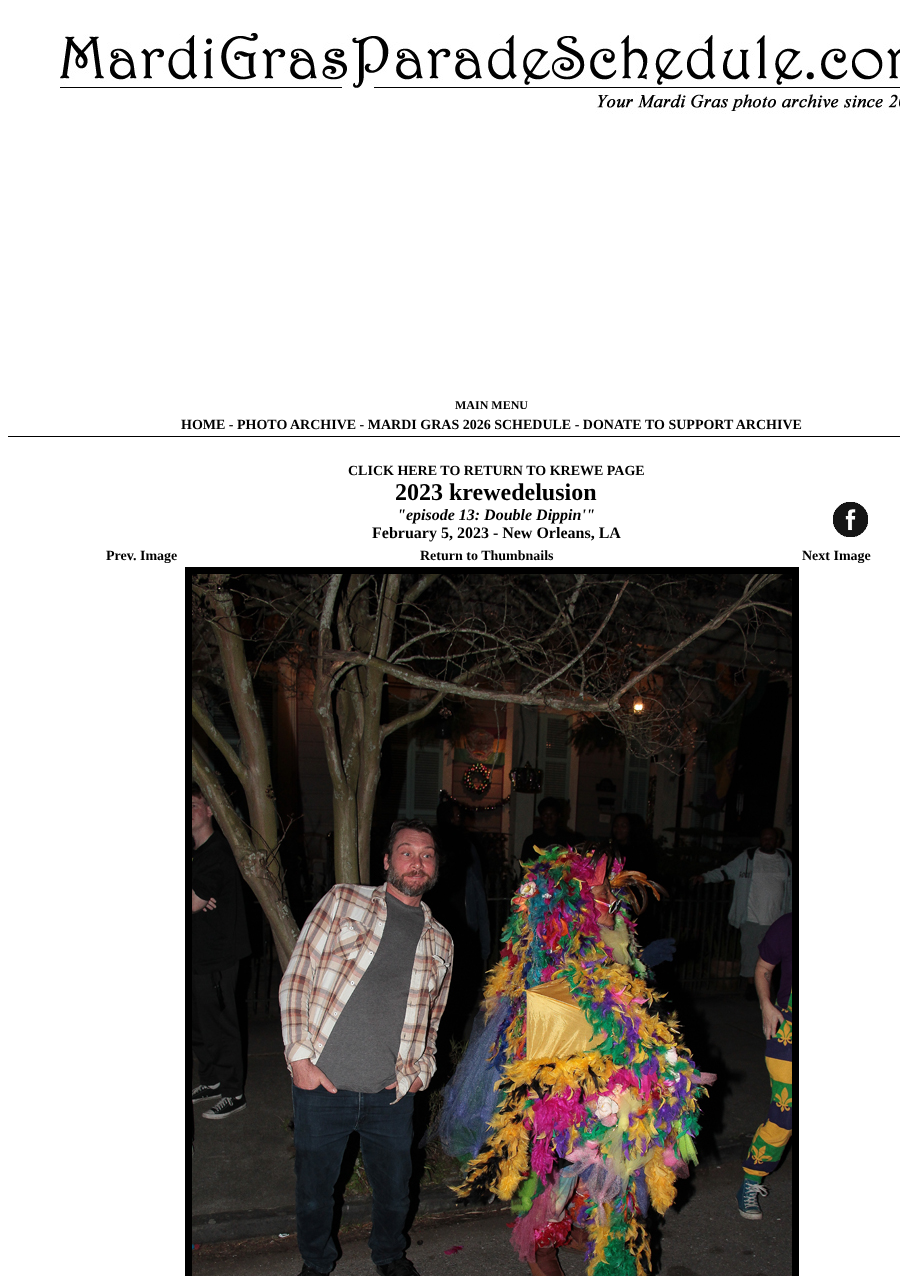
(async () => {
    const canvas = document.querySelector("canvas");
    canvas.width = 900;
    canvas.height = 1276;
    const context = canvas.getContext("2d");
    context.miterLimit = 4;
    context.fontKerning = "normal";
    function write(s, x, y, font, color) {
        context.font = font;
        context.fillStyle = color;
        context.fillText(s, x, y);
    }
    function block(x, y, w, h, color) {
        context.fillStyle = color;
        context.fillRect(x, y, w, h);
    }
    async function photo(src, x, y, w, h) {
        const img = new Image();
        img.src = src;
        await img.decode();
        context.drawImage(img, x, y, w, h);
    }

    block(0, 0, 900, 1276, "rgb(255, 255, 255)");
    await photo("media/1.png", 60, 32, 840, 82);
    write("MAIN MENU", 455, 409, "bold 12px Liberation Serif", "rgb(0, 0, 0)");
    write("HOME - PHOTO", 181, 429, "bold 14px Liberation Serif", "rgb(0, 0, 0)");
    write("ARCHIVE - MARDI GRAS 2026 SCHEDULE - DONATE TO SUPPORT ARCHIVE", 290, 429, "bold 14px Liberation Serif", "rgb(0, 0, 0)");
    block(8, 436, 892, 1, "rgb(0, 0, 0)");
    write("CLICK HERE TO RETURN TO KREWE PAGE", 348, 475, "bold 14px Liberation Serif", "rgb(0, 0, 0)");
    write("2023 krewedelusion", 395, 500, "bold 24px Liberation Serif", "rgb(0, 0, 0)");
    write("\"episode 13: Double Dippin'\"", 397, 520, "italic bold 16px Liberation Serif", "rgb(0, 0, 0)");
    write("February 5, 2023 - New Orleans, LA", 372, 538, "bold 16px Liberation Serif", "rgb(0, 0, 0)");
    await photo("media/2.png", 833, 502, 35, 35);
    write("Prev. Image", 106, 560, "bold 14px Liberation Serif", "rgb(0, 0, 0)");
    write("Return to Thumbnails", 420, 560, "bold 14px Liberation Serif", "rgb(0, 0, 0)");
    write("Next Image", 802, 560, "bold 14px Liberation Serif", "rgb(0, 0, 0)");
    block(185, 567, 614, 709, "rgb(0, 0, 0)");
    await photo("media/3.png", 192, 574, 600, 702);
})();
